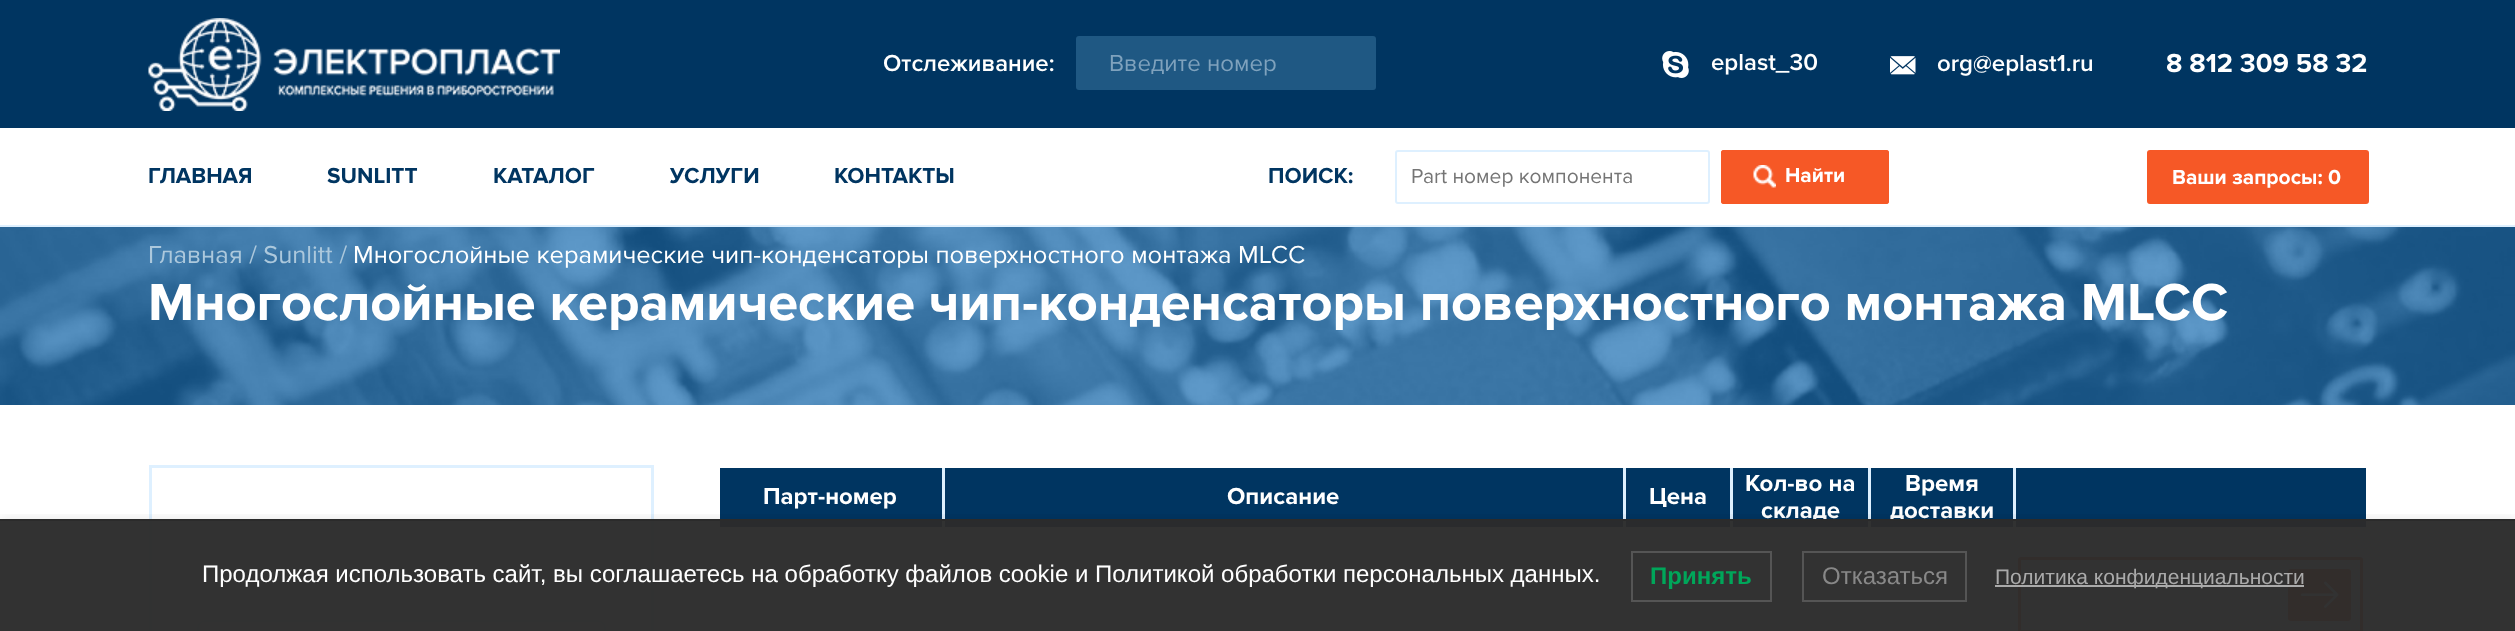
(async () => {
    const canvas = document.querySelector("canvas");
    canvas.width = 2515;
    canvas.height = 631;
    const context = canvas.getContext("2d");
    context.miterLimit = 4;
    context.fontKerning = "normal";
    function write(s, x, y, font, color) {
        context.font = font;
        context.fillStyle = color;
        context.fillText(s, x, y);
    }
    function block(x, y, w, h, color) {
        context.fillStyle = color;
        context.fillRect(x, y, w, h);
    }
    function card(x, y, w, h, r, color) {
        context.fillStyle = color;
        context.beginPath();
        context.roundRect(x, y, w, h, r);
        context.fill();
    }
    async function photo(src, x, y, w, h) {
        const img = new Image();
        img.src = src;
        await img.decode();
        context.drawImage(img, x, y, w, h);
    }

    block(0, 0, 2515, 631, "rgb(255, 255, 255)");
    block(0, 0, 2515, 128, "rgb(0, 53, 97)");
    await photo("media/1.png", 148, 18, 412, 93);
    write("Отслеживание:", 883, 71, "600 24px Proxima Nova", "rgb(255, 255, 255)");
    card(1076, 36, 300, 54, 3, "rgb(31, 88, 131)");
    write("Введите номер", 1109, 71, "24px Proxima Nova", "rgb(127, 162, 189)");
    await photo("media/2.png", 1662, 51, 27, 27);
    write("eplast_30", 1711, 70, "600 24px Proxima Nova", "rgb(255, 255, 255)");
    await photo("media/3.png", 1890, 56, 26, 19);
    write("org@eplast1.ru", 1937, 71, "600 24px Proxima Nova", "rgb(255, 255, 255)");
    write("8 812 309 58 32", 2166, 72, "bold 27px Proxima Nova", "rgb(255, 255, 255)");
    block(0, 225, 2515, 2, "rgb(222, 240, 255)");
    write("ГЛАВНАЯ", 148, 183, "bold 22.5px Proxima Nova", "rgb(0, 53, 97)");
    write("SUNLITT", 327, 183, "bold 22.5px Proxima Nova", "rgb(0, 53, 97)");
    write("КАТАЛОГ", 493, 183, "bold 22.5px Proxima Nova", "rgb(0, 53, 97)");
    write("УСЛУГИ", 670, 183, "bold 22.5px Proxima Nova", "rgb(0, 53, 97)");
    write("КОНТАКТЫ", 834, 183, "bold 22.5px Proxima Nova", "rgb(0, 53, 97)");
    write("ПОИСК:", 1268, 183, "bold 22.5px Proxima Nova", "rgb(0, 53, 97)");
    context.beginPath();
    context.roundRect(1396, 151, 313, 52, 2);
    context.strokeStyle = "rgb(222, 240, 255)";
    context.lineWidth = 2;
    context.stroke();
    write("Part номер компонента", 1411, 183, "21px Proxima Nova", "rgb(117, 117, 117)");
    card(1721, 150, 168, 54, 3, "rgb(246, 88, 38)");
    await photo("media/4.png", 1753, 165, 23, 23);
    context.beginPath();
    context.roundRect(1722.5, 151.5, 165, 51, 1.5);
    context.strokeStyle = "rgb(246, 88, 38)";
    context.lineWidth = 3;
    context.stroke();
    write("Найти", 1785, 182, "bold 21px Proxima Nova", "rgb(255, 255, 255)");
    context.fillStyle = "rgb(246, 88, 38)";
    context.beginPath();
    context.roundRect(2148.5, 151.5, 219, 51, 1.5);
    context.fill();
    context.stroke();
    write("Ваши запросы: 0", 2172, 184, "bold 21px Proxima Nova", "rgb(255, 255, 255)");
    block(0, 227, 2515, 178, "rgb(26, 110, 179)");
    await photo("media/5.png", 0, 227, 2515, 178);
    write("Главная / Sunlitt /", 148, 263, "25.5px Proxima Nova", "rgb(172, 200, 220)");
    write("Многослойные керамические чип-конденсаторы поверхностного монтажа MLCC", 353, 263, "25.5px Proxima Nova", "rgb(255, 255, 255)");
    write("Многослойные керамические чип-конденсаторы поверхностного монтажа MLCC", 148, 320, "bold 54px Proxima Nova", "rgb(255, 255, 255)");
    context.strokeStyle = "rgb(222, 240, 255)";
    context.strokeRect(150.5, 466.5, 502, 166);
    context.beginPath();
    context.roundRect(198, 621, 407, 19, 7);
    context.lineWidth = 2;
    context.stroke();
    block(942, 468, 1074, 59, "rgb(222, 240, 255)");
    block(720, 468, 222, 59, "rgb(0, 53, 97)");
    write("Парт-номер", 763, 504, "bold 24px Proxima Nova", "rgb(255, 255, 255)");
    block(945, 468, 678, 59, "rgb(0, 53, 97)");
    write("Описание", 1227, 504, "bold 24px Proxima Nova", "rgb(255, 255, 255)");
    block(1626, 468, 104, 59, "rgb(0, 53, 97)");
    write("Цена", 1649, 504, "bold 24px Proxima Nova", "rgb(255, 255, 255)");
    block(1733, 468, 135, 59, "rgb(0, 53, 97)");
    write("Кол-во на", 1745, 491, "bold 24px Proxima Nova", "rgb(255, 255, 255)");
    write("складе", 1761, 518, "bold 24px Proxima Nova", "rgb(255, 255, 255)");
    block(1871, 468, 142, 59, "rgb(0, 53, 97)");
    write("Время", 1905, 491, "bold 24px Proxima Nova", "rgb(255, 255, 255)");
    write("доставки", 1890, 518, "bold 24px Proxima Nova", "rgb(255, 255, 255)");
    block(2016, 468, 350, 59, "rgb(0, 53, 97)");
    block(720, 530, 1646, 101, "rgb(243, 247, 249)");
    context.fillStyle = "rgb(255, 255, 255)";
    context.beginPath();
    context.roundRect(2019.5, 558.5, 342, 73, 1.5);
    context.fill();
    context.strokeStyle = "rgb(246, 88, 38)";
    context.lineWidth = 3;
    context.stroke();
    card(2288, 569, 63, 52, 3, "rgb(246, 88, 38)");
    await photo("media/6.png", 2301, 581, 38, 27);
    context.save();
    context.beginPath();
    context.rect(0, 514, 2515, 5);
    context.clip();
    context.fillStyle = "rgba(0, 0, 0, 0.1)";
    context.filter = "blur(6px)";
    context.beginPath();
    context.rect(0, 519, 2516, 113);
    context.fill();
    context.filter = "none";
    context.restore();
    block(0, 521, 2515, 110, "rgba(43, 43, 43, 0.97)");
    block(0, 519, 2515, 2, "rgb(43, 43, 43)");
    write("Продолжая использовать сайт, вы соглашаетесь на обработку файлов cookie и Политикой обработки персональных данных.", 202, 582, "24px Liberation Sans", "rgb(255, 255, 255)");
    context.strokeStyle = "rgb(85, 85, 85)";
    context.lineWidth = 2;
    context.strokeRect(1632, 552, 139, 49);
    write("Принять", 1650, 584, "bold 24px Liberation Sans", "rgb(0, 166, 90)");
    context.strokeRect(1803, 552, 163, 49);
    write("Отказаться", 1822, 584, "24px Liberation Sans", "rgb(136, 136, 136)");
    block(1995, 585, 309, 2, "rgb(170, 170, 170)");
    write("Политика конфиденциальности", 1995, 584, "21px Liberation Sans", "rgb(170, 170, 170)");
})();
